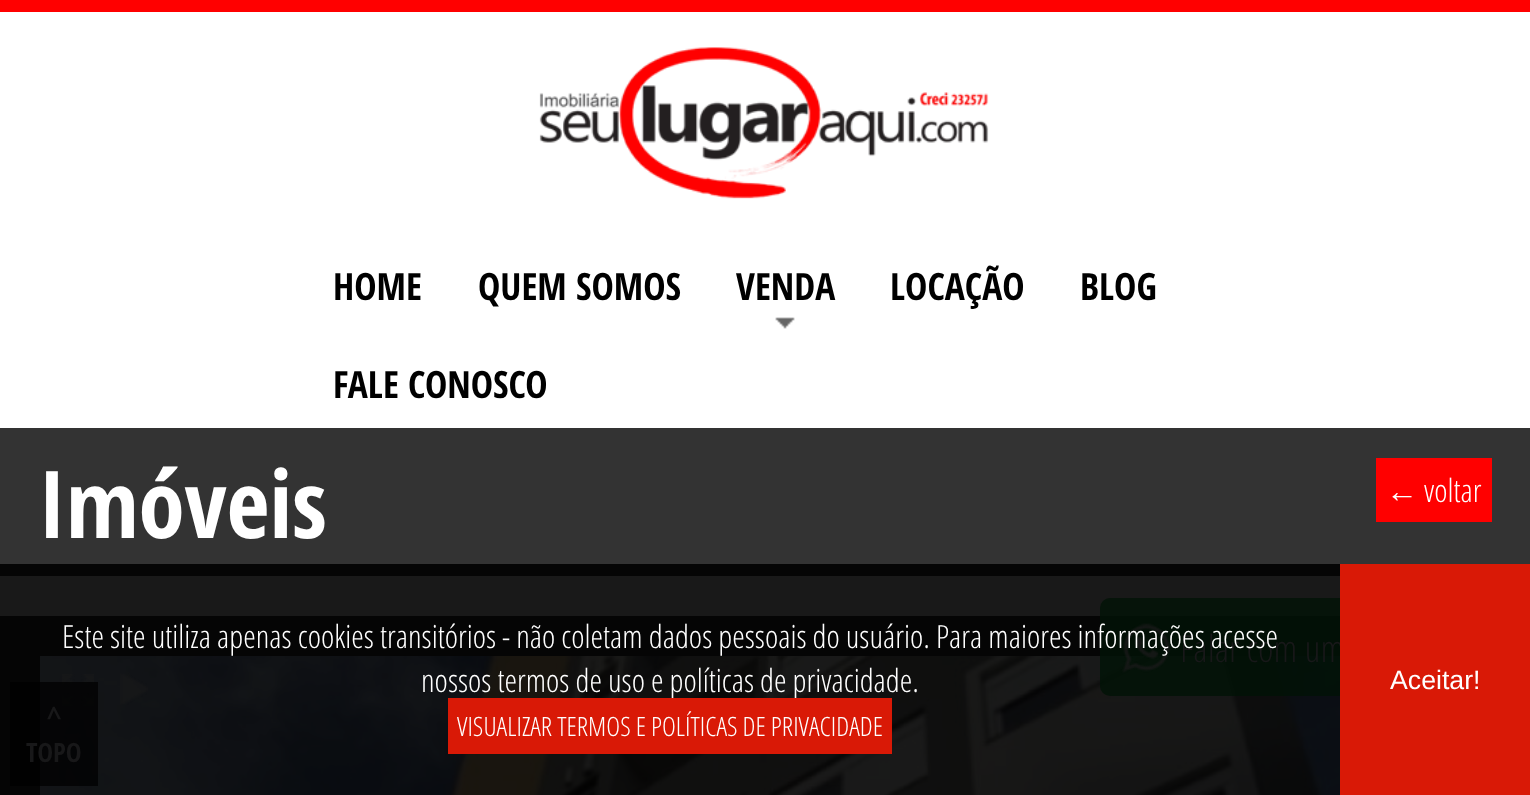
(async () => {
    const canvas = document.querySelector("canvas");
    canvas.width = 1530;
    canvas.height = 795;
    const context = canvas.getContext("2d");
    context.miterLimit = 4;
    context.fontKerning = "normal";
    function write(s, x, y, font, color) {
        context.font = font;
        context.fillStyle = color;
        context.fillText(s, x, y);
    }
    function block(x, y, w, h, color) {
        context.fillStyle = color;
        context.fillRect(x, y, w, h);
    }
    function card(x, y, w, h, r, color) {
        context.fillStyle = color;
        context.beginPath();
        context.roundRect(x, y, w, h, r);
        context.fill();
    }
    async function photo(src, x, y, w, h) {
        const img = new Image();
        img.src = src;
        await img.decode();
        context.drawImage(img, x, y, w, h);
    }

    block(0, 0, 1530, 795, "rgb(255, 255, 255)");
    block(0, 576, 1340, 40, "rgb(25, 25, 25)");
    block(0, 0, 1530, 12, "rgb(255, 0, 0)");
    await photo("media/1.png", 539, 47, 450, 152);
    write("HOME", 333, 300, "bold 37.5px Open Sans Condensed", "rgb(0, 0, 0)");
    write("QUEM SOMOS", 478, 300, "bold 37.5px Open Sans Condensed", "rgb(0, 0, 0)");
    await photo("media/2.png", 775, 317, 20, 12);
    write("VENDA", 736, 300, "bold 37.5px Open Sans Condensed", "rgb(0, 0, 0)");
    write("LOCAÇÃO", 890, 300, "bold 37.5px Open Sans Condensed", "rgb(0, 0, 0)");
    write("BLOG", 1080, 300, "bold 37.5px Open Sans Condensed", "rgb(0, 0, 0)");
    write("FALE CONOSCO", 333, 398, "bold 37.5px Open Sans Condensed", "rgb(0, 0, 0)");
    block(0, 428, 1530, 136, "rgb(51, 51, 51)");
    block(0, 564, 1340, 12, "rgb(5, 5, 5)");
    write("Imóveis", 38, 538, "bold 93.5px Open Sans Condensed", "rgb(255, 255, 255)");
    block(1376, 458, 116, 64, "rgb(255, 0, 0)");
    write("←", 1386, 502, "32px Liberation Sans", "rgb(255, 255, 255)");
    write("voltar", 1424, 502, "300 32px Open Sans Condensed", "rgb(255, 255, 255)");
    block(0, 616, 1340, 179, "rgb(5, 5, 5)");
    await photo("media/3.png", 40, 656, 1300, 139);
    await photo("media/4.png", 62, 674, 32, 32);
    await photo("media/5.png", 120, 673, 28, 32);
    card(1100, 598, 370, 98, 10, "rgba(1, 19, 6, 0.8)");
    await photo("media/6.png", 1121, 623, 50, 50);
    write("Falar com um", 1180, 662, "300 37.5px Open Sans Condensed", "rgb(24, 24, 25)");
    write("Este site utiliza apenas cookies transitórios - não coletam dados pessoais do usuário. Para maiores informações acesse", 62, 648, "300 32px Open Sans Condensed", "rgb(255, 255, 255)");
    write("nossos termos de uso e políticas de privacidade.", 421, 692, "300 32px Open Sans Condensed", "rgb(255, 255, 255)");
    block(448, 698, 444, 56, "rgb(217, 25, 6)");
    write("VISUALIZAR TERMOS E POLÍTICAS DE PRIVACIDADE", 457, 736, "300 26.7px Open Sans Condensed", "rgb(255, 255, 255)");
    block(1340, 564, 190, 231, "rgb(217, 25, 6)");
    write("Aceitar!", 1390, 689, "26.7px Liberation Sans", "rgb(255, 255, 255)");
    block(10, 682, 88, 104, "rgba(0, 0, 0, 0.72)");
    write("^", 47, 726, "bold 26.7px Open Sans Condensed", "rgb(24, 24, 25)");
    write("TOPO", 26, 762, "bold 26.7px Open Sans Condensed", "rgb(24, 24, 25)");
})();
